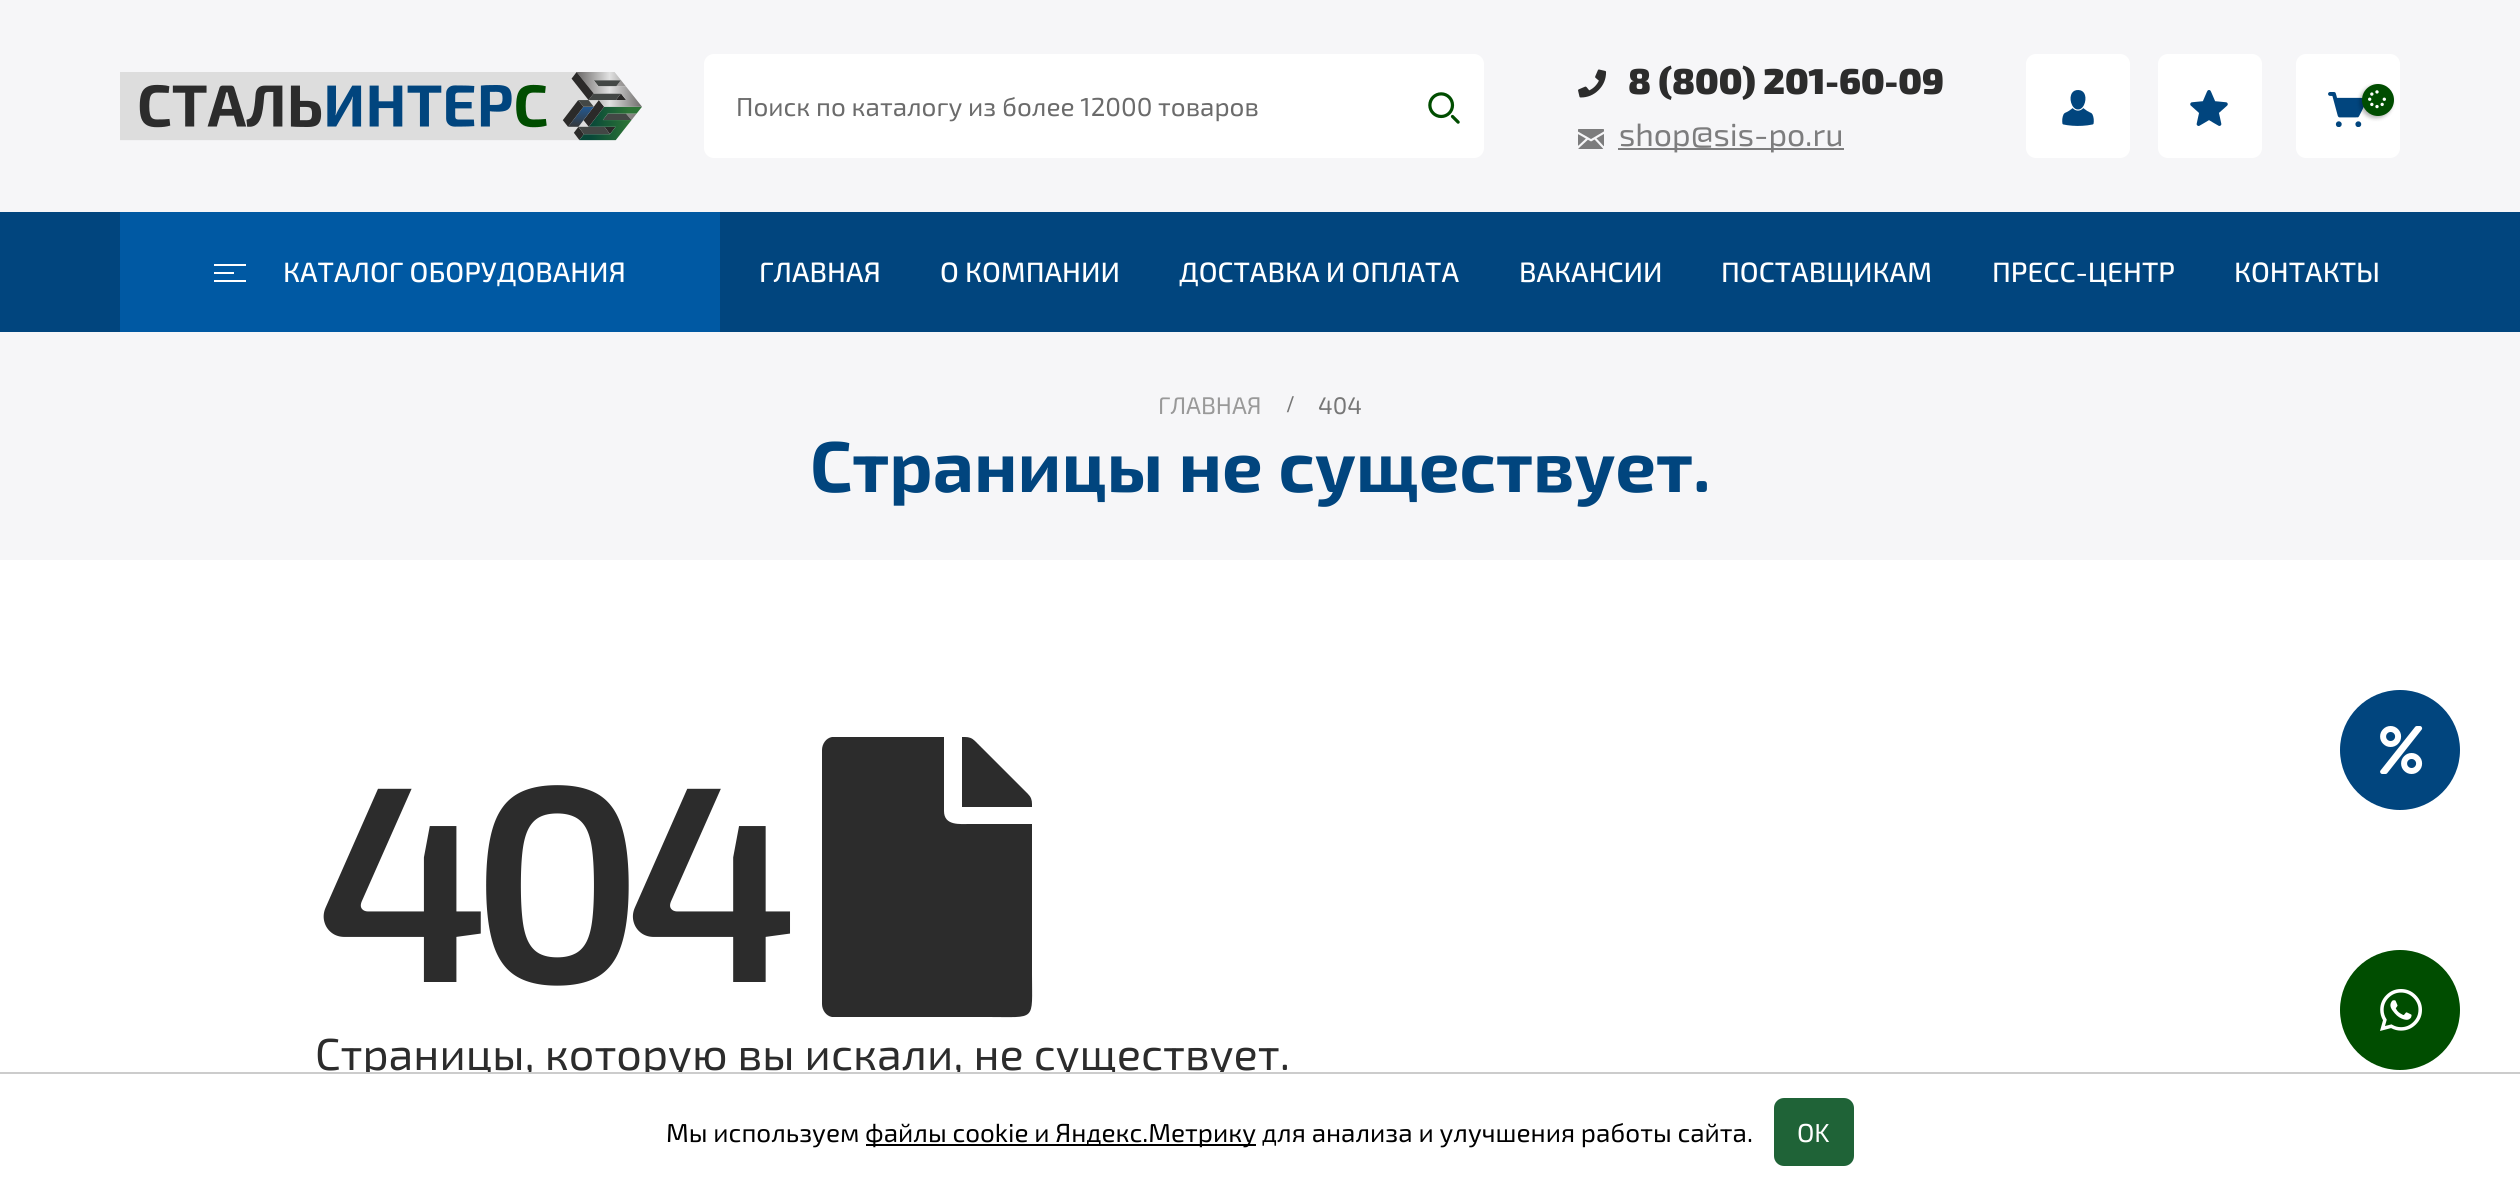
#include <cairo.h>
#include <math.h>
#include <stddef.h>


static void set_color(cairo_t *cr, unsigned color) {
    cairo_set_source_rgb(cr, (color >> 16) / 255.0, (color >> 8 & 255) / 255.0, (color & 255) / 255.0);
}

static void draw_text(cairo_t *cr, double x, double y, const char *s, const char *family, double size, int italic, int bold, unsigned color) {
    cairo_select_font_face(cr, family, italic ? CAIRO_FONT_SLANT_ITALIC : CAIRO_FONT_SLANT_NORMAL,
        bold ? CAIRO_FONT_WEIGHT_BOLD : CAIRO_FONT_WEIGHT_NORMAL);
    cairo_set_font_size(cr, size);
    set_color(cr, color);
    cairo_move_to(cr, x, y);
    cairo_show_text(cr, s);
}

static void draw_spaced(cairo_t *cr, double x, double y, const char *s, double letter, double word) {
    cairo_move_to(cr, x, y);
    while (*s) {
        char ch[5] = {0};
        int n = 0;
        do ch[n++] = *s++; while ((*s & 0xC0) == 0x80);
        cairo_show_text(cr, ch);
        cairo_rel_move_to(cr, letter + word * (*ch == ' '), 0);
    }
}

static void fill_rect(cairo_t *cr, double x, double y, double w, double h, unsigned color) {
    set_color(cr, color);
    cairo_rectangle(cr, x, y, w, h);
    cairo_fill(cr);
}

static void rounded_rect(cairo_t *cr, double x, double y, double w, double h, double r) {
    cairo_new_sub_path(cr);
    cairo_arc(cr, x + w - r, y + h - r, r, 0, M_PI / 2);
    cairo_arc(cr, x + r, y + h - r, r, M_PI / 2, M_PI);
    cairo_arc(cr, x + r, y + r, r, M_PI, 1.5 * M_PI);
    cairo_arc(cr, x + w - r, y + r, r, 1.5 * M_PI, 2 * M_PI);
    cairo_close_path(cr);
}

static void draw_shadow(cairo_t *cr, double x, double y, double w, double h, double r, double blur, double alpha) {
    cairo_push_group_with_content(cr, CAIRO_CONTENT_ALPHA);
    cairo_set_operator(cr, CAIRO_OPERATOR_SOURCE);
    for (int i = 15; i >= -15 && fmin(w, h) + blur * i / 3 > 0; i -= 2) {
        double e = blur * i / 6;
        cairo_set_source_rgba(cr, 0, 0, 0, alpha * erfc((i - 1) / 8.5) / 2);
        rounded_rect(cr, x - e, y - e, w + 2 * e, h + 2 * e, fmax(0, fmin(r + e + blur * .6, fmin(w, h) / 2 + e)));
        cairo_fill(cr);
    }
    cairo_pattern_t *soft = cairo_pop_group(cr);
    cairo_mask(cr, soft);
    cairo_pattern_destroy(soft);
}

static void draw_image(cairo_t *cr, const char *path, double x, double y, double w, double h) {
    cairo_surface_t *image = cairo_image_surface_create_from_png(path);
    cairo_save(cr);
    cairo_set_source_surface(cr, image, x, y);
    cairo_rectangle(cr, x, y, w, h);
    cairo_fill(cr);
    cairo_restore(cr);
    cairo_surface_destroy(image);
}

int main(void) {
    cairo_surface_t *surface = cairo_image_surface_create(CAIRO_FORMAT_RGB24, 2520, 1189);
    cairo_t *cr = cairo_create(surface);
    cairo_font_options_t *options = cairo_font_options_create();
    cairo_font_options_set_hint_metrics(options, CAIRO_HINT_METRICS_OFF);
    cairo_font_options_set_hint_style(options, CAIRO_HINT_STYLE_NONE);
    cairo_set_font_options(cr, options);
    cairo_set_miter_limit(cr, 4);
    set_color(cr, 0xFFFFFF);
    cairo_paint(cr);
    fill_rect(cr, 0, 0, 2520, 212, 0xF6F6F8);
    draw_image(cr, "assets/img1.png", 120, 72, 522, 69);
    set_color(cr, 0xFFFFFF);
    rounded_rect(cr, 704, 54, 780, 104, 10);
    cairo_fill(cr);
    draw_text(cr, 736, 116, "Поиск по каталогу из более 12000 товаров", "Exo 2", 26, 0, 0, 0x6B6B6B);
    draw_image(cr, "assets/img2.png", 1428, 92, 32, 32);
    draw_image(cr, "assets/img3.png", 1578, 69, 29, 29);
    draw_text(cr, 1628, 94, "8 (800) 201-60-09", "Exo 2 Black", 36, 0, 0, 0x2C2C2C);
    draw_image(cr, "assets/img4.png", 1578, 129, 26, 20);
    fill_rect(cr, 1618, 148, 226, 2, 0x7D7D7E);
    draw_text(cr, 1619, 146, "shop@sis-po.ru", "Exo 2", 32, 0, 0, 0x7D7D7E);
    set_color(cr, 0xFFFFFF);
    rounded_rect(cr, 2026, 54, 104, 104, 10);
    cairo_fill(cr);
    draw_image(cr, "assets/img5.png", 2062, 90, 32, 36);
    rounded_rect(cr, 2158, 54, 104, 104, 10);
    cairo_fill(cr);
    draw_image(cr, "assets/img6.png", 2190, 90, 38, 36);
    rounded_rect(cr, 2296, 54, 104, 104, 10);
    cairo_fill(cr);
    draw_image(cr, "assets/img7.png", 2328, 92, 36, 35);
    set_color(cr, 0x000000);
    draw_shadow(cr, 2360, 86, 32, 32, 16, 2, 0.3);
    set_color(cr, 0x004D00);
    cairo_arc(cr, 2378, 100, 16, 0, 2 * M_PI);
    cairo_fill(cr);
    draw_image(cr, "assets/img8.png", 2368, 90, 18, 19);
    fill_rect(cr, 0, 212, 2520, 120, 0x01457E);
    fill_rect(cr, 120, 212, 600, 120, 0x0059A3);
    fill_rect(cr, 214, 264, 32, 2, 0xFFFFFF);
    draw_text(cr, 283, 282, "КАТАЛОГ ОБОРУДОВАНИЯ", "Exo 2 Medium", 28, 0, 0, 0xFFFFFF);
    fill_rect(cr, 214, 272, 20, 2, 0xFFFFFF);
    fill_rect(cr, 214, 280, 32, 2, 0xFFFFFF);
    draw_text(cr, 759, 282, "ГЛАВНАЯ", "Exo 2 Medium", 28, 0, 0, 0xFFFFFF);
    draw_text(cr, 940, 282, "О КОМПАНИИ", "Exo 2 Medium", 28, 0, 0, 0xFFFFFF);
    draw_text(cr, 1179, 282, "ДОСТАВКА И ОПЛАТА", "Exo 2 Medium", 28, 0, 0, 0xFFFFFF);
    draw_text(cr, 1519, 282, "ВАКАНСИИ", "Exo 2 Medium", 28, 0, 0, 0xFFFFFF);
    draw_text(cr, 1721, 282, "ПОСТАВЩИКАМ", "Exo 2 Medium", 28, 0, 0, 0xFFFFFF);
    draw_text(cr, 1992, 282, "ПРЕСС-ЦЕНТР", "Exo 2 Medium", 28, 0, 0, 0xFFFFFF);
    draw_text(cr, 2234, 282, "КОНТАКТЫ", "Exo 2 Medium", 28, 0, 0, 0xFFFFFF);
    fill_rect(cr, 0, 332, 2520, 228, 0xF6F6F8);
    draw_text(cr, 1158, 414, "ГЛАВНАЯ", "Exo 2", 24, 0, 0, 0x999999);
    draw_text(cr, 1287, 412, "/", "Liberation Serif", 24, 0, 1, 0x777777);
    draw_text(cr, 1318, 414, "404", "Exo 2", 24, 0, 0, 0x777777);
    draw_text(cr, 810, 492, "Страницы не существует.", "Exo 2", 72, 0, 1, 0x01457E);
    cairo_select_font_face(cr, "Exo 2 SemiBold", CAIRO_FONT_SLANT_NORMAL, CAIRO_FONT_WEIGHT_NORMAL);
    cairo_set_font_size(cr, 280);
    set_color(cr, 0x2C2C2C);
    draw_spaced(cr, 315, 982, "404", -20, 0);
    cairo_new_path(cr);
    cairo_move_to(cr, 944, 811);
    cairo_curve_to(cr, 944, 826, 960, 824, 970, 824);
    cairo_line_to(cr, 1032, 824);
    cairo_line_to(cr, 1032, 974);
    cairo_curve_to(cr, 1032, 1022, 1037, 1017, 988, 1017);
    cairo_line_to(cr, 832, 1017);
    cairo_curve_to(cr, 826, 1016, 822, 1010, 822, 1004);
    cairo_line_to(cr, 822, 750);
    cairo_curve_to(cr, 822, 744, 826, 738, 832, 737);
    cairo_line_to(cr, 944, 737);
    cairo_close_path(cr);
    cairo_move_to(cr, 1032, 804);
    cairo_line_to(cr, 1032, 807);
    cairo_line_to(cr, 962, 807);
    cairo_line_to(cr, 962, 737);
    cairo_line_to(cr, 965, 737);
    cairo_curve_to(cr, 969, 737, 972, 738, 975, 741);
    cairo_line_to(cr, 1028, 794);
    cairo_curve_to(cr, 1031, 797, 1032, 800, 1032, 804);
    cairo_close_path(cr);
    cairo_fill(cr);
    draw_text(cr, 315, 1070, "Страницы, которую вы искали, не существует.", "Exo 2", 44.8, 0, 0, 0x2C2C2C);
    set_color(cr, 0x01457E);
    cairo_new_path(cr);
    cairo_arc(cr, 2400, 750, 60, 0, 2 * M_PI);
    cairo_fill(cr);
    draw_image(cr, "assets/img9.png", 2380, 726, 43, 48);
    set_color(cr, 0x004D00);
    cairo_arc(cr, 2400, 1010, 60, 0, 2 * M_PI);
    cairo_fill(cr);
    draw_image(cr, "assets/img10.png", 2380, 989, 42, 42);
    fill_rect(cr, 366, 1074, 857, 6, 0xFFFFFF);
    fill_rect(cr, 0, 1072, 2520, 2, 0xCCCCCC);
    draw_text(cr, 666, 1142, "Мы используем", "Exo 2", 26, 0, 0, 0x000000);
    fill_rect(cr, 866, 1144, 390, 2, 0x000000);
    draw_text(cr, 865, 1142, "файлы cookie и Яндекс.Метрику для анализа и улучшения работы сайта.", "Exo 2", 26, 0, 0, 0x000000);
    set_color(cr, 0x1F6337);
    rounded_rect(cr, 1774, 1098, 80, 68, 10);
    cairo_fill(cr);
    draw_text(cr, 1797, 1142, "OK", "Exo 2", 26, 0, 0, 0xFFFFFF);
    cairo_surface_write_to_png(surface, "output.png");
    cairo_font_options_destroy(options);
    cairo_destroy(cr);
    cairo_surface_destroy(surface);
    return 0;
}
